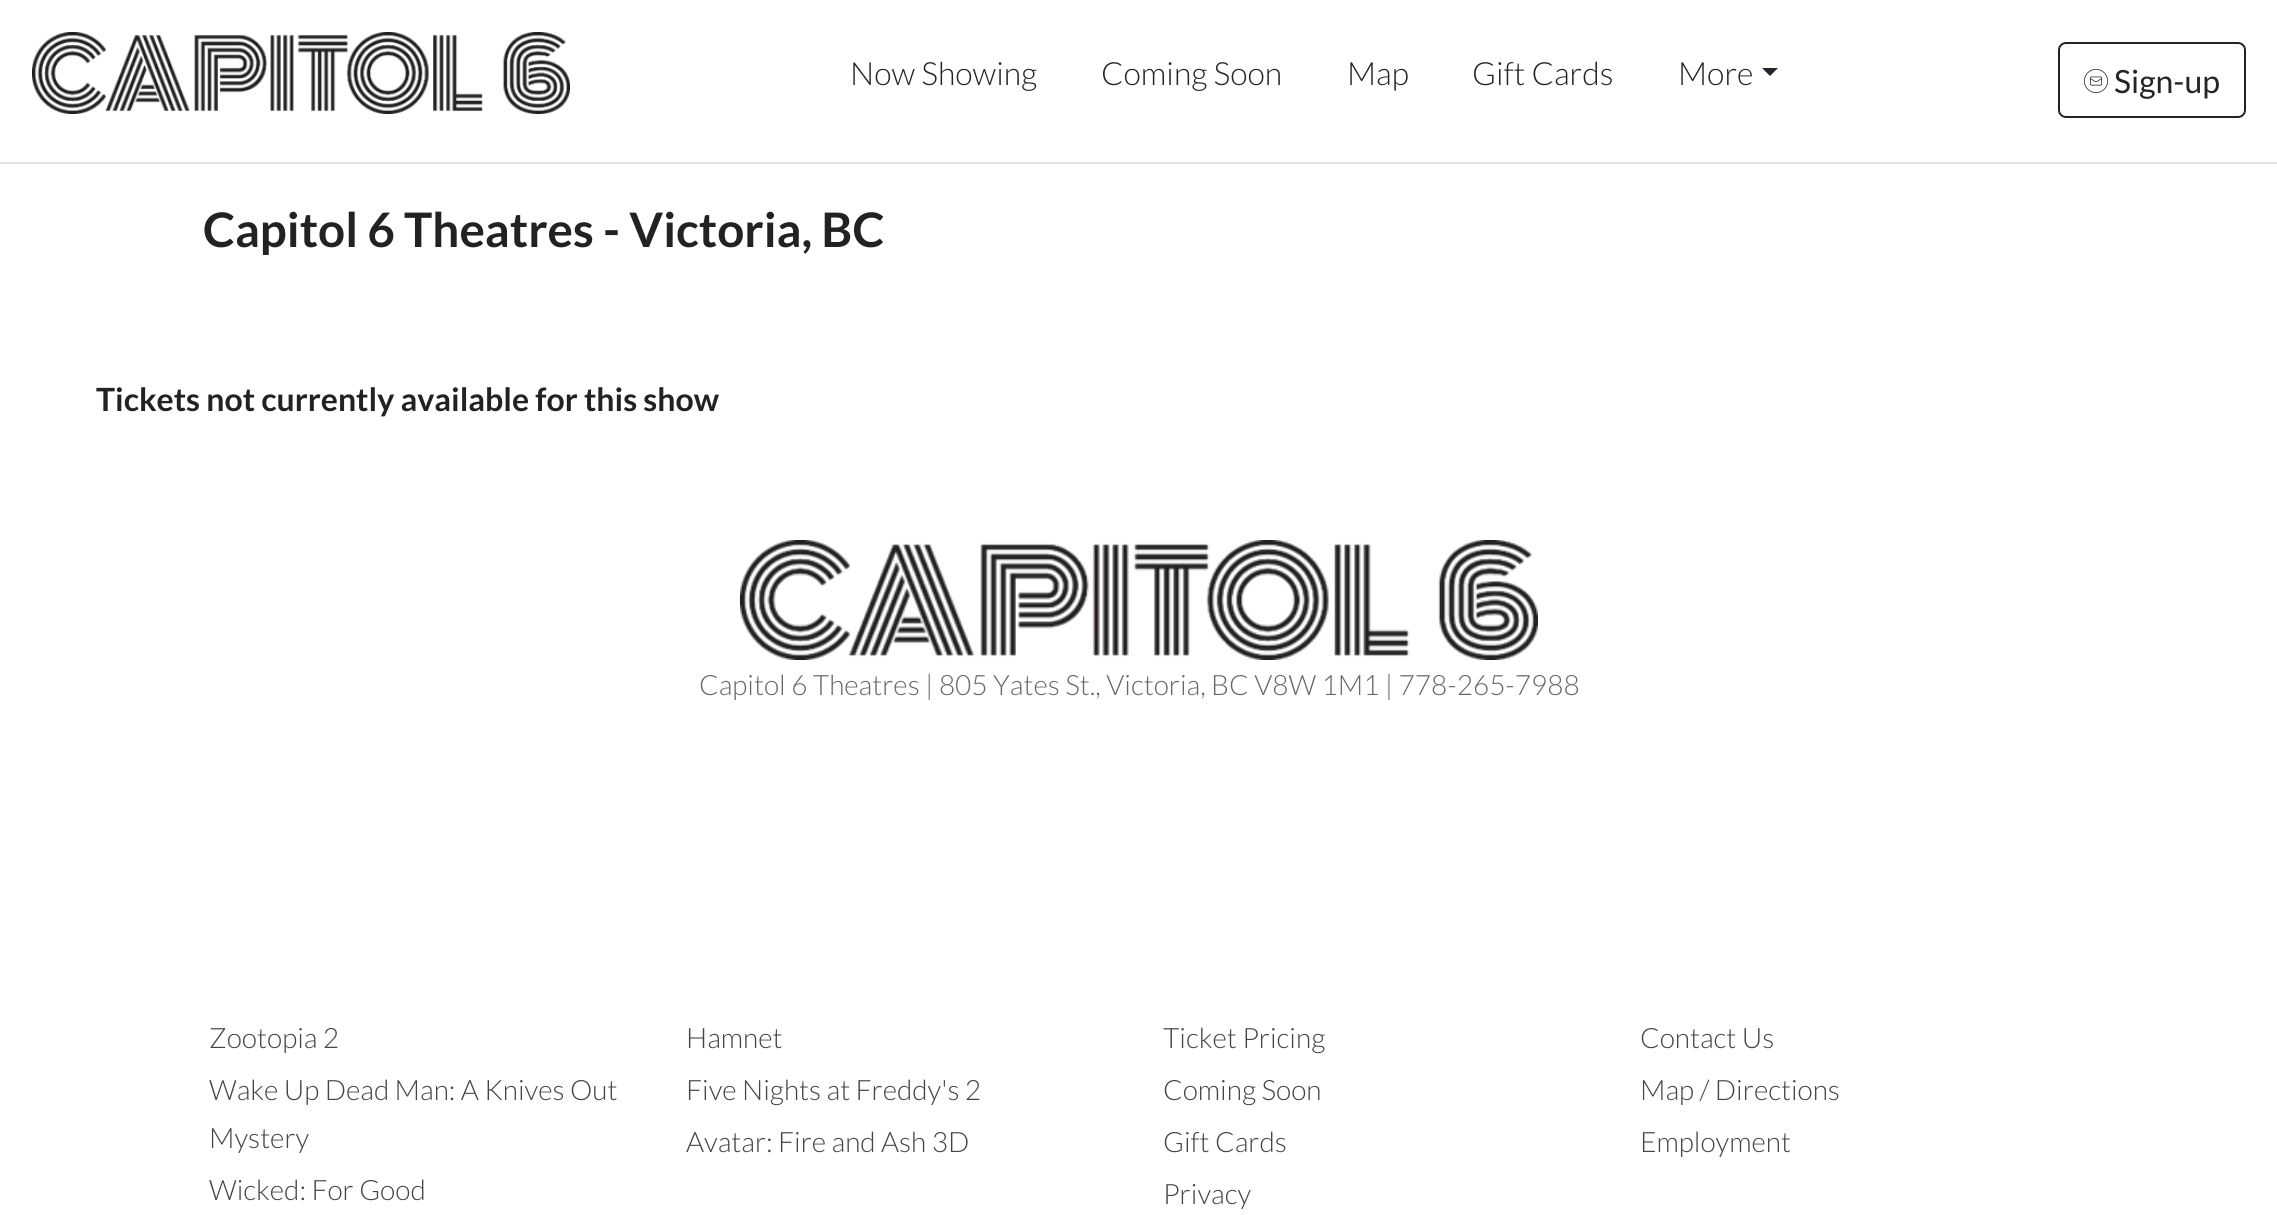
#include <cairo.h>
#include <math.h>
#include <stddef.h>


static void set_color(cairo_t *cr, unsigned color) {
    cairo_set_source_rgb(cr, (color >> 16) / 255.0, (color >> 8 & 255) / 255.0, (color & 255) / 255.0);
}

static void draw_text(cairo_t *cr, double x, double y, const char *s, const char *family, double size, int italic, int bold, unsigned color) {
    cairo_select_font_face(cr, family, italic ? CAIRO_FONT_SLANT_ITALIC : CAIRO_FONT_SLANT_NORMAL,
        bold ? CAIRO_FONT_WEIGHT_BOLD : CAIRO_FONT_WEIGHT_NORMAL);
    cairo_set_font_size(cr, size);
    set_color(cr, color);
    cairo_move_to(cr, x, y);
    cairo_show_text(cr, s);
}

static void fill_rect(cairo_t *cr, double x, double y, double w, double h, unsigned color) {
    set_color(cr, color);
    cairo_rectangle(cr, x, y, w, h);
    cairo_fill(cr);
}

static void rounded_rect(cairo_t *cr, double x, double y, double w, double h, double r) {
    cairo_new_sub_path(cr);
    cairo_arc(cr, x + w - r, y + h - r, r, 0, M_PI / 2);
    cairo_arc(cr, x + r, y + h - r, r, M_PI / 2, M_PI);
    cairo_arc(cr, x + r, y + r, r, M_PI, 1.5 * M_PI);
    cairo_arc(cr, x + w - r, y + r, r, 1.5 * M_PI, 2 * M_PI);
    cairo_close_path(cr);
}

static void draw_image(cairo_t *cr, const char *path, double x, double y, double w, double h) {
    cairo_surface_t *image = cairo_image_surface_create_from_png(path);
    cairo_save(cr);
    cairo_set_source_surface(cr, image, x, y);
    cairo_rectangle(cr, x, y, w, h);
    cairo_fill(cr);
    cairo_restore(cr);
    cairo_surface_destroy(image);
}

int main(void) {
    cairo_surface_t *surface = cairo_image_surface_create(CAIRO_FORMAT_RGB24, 2277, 1215);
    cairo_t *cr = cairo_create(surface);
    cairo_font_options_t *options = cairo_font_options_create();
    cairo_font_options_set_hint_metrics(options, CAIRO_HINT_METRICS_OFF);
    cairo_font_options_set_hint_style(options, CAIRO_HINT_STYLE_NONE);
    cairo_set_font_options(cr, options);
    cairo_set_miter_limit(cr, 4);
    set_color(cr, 0xFFFFFF);
    cairo_paint(cr);
    fill_rect(cr, 0, 162, 2277, 2, 0xDEE2E6);
    draw_image(cr, "assets/img1.png", 32, 32, 538, 82);
    draw_text(cr, 850, 85, "Now Showing", "Lato Light", 32, 0, 0, 0x212529);
    draw_text(cr, 1101, 85, "Coming Soon", "Lato Light", 32, 0, 0, 0x212529);
    draw_text(cr, 1347, 85, "Map", "Lato Light", 32, 0, 0, 0x212529);
    draw_text(cr, 1472, 85, "Gift Cards", "Lato Light", 32, 0, 0, 0x212529);
    draw_text(cr, 1678, 85, "More", "Lato Light", 32, 0, 0, 0x212529);
    cairo_new_path(cr);
    cairo_move_to(cr, 1762, 68);
    cairo_line_to(cr, 1778, 68);
    cairo_line_to(cr, 1770, 76);
    cairo_close_path(cr);
    cairo_fill(cr);
    rounded_rect(cr, 2059, 43, 186, 74, 7);
    cairo_stroke(cr);
    draw_image(cr, "assets/img2.png", 2084, 69, 24, 24);
    draw_text(cr, 2114, 93, "Sign-up", "Lato", 32, 0, 0, 0x212529);
    draw_text(cr, 203, 247, "Capitol 6 Theatres - Victoria, BC", "Lato", 47.6, 0, 1, 0x222222);
    draw_text(cr, 96, 411, "Tickets not currently available for this show", "Lato", 32, 0, 1, 0x222222);
    draw_image(cr, "assets/img3.png", 740, 540, 798, 120);
    draw_text(cr, 699, 695, "Capitol 6 Theatres | 805 Yates St., Victoria, BC V8W 1M1 | 778-265-7988", "Lato Light", 28, 0, 0, 0x666666);
    draw_text(cr, 209, 1048, "Zootopia 2", "Lato Light", 28, 0, 0, 0x444444);
    draw_text(cr, 209, 1100, "Wake Up Dead Man: A Knives Out", "Lato Light", 28, 0, 0, 0x444444);
    draw_text(cr, 209, 1148, "Mystery", "Lato Light", 28, 0, 0, 0x444444);
    draw_text(cr, 209, 1200, "Wicked: For Good", "Lato Light", 28, 0, 0, 0x444444);
    draw_text(cr, 686, 1048, "Hamnet", "Lato Light", 28, 0, 0, 0x444444);
    draw_text(cr, 686, 1100, "Five Nights at Freddy's 2", "Lato Light", 28, 0, 0, 0x444444);
    draw_text(cr, 686, 1152, "Avatar: Fire and Ash 3D", "Lato Light", 28, 0, 0, 0x444444);
    draw_text(cr, 1163, 1048, "Ticket Pricing", "Lato Light", 28, 0, 0, 0x444444);
    draw_text(cr, 1163, 1100, "Coming Soon", "Lato Light", 28, 0, 0, 0x444444);
    draw_text(cr, 1163, 1152, "Gift Cards", "Lato Light", 28, 0, 0, 0x444444);
    draw_text(cr, 1163, 1204, "Privacy", "Lato Light", 28, 0, 0, 0x444444);
    draw_text(cr, 1640, 1048, "Contact Us", "Lato Light", 28, 0, 0, 0x444444);
    draw_text(cr, 1640, 1100, "Map / Directions", "Lato Light", 28, 0, 0, 0x444444);
    draw_text(cr, 1640, 1152, "Employment", "Lato Light", 28, 0, 0, 0x444444);
    cairo_surface_write_to_png(surface, "output.png");
    cairo_font_options_destroy(options);
    cairo_destroy(cr);
    cairo_surface_destroy(surface);
    return 0;
}
